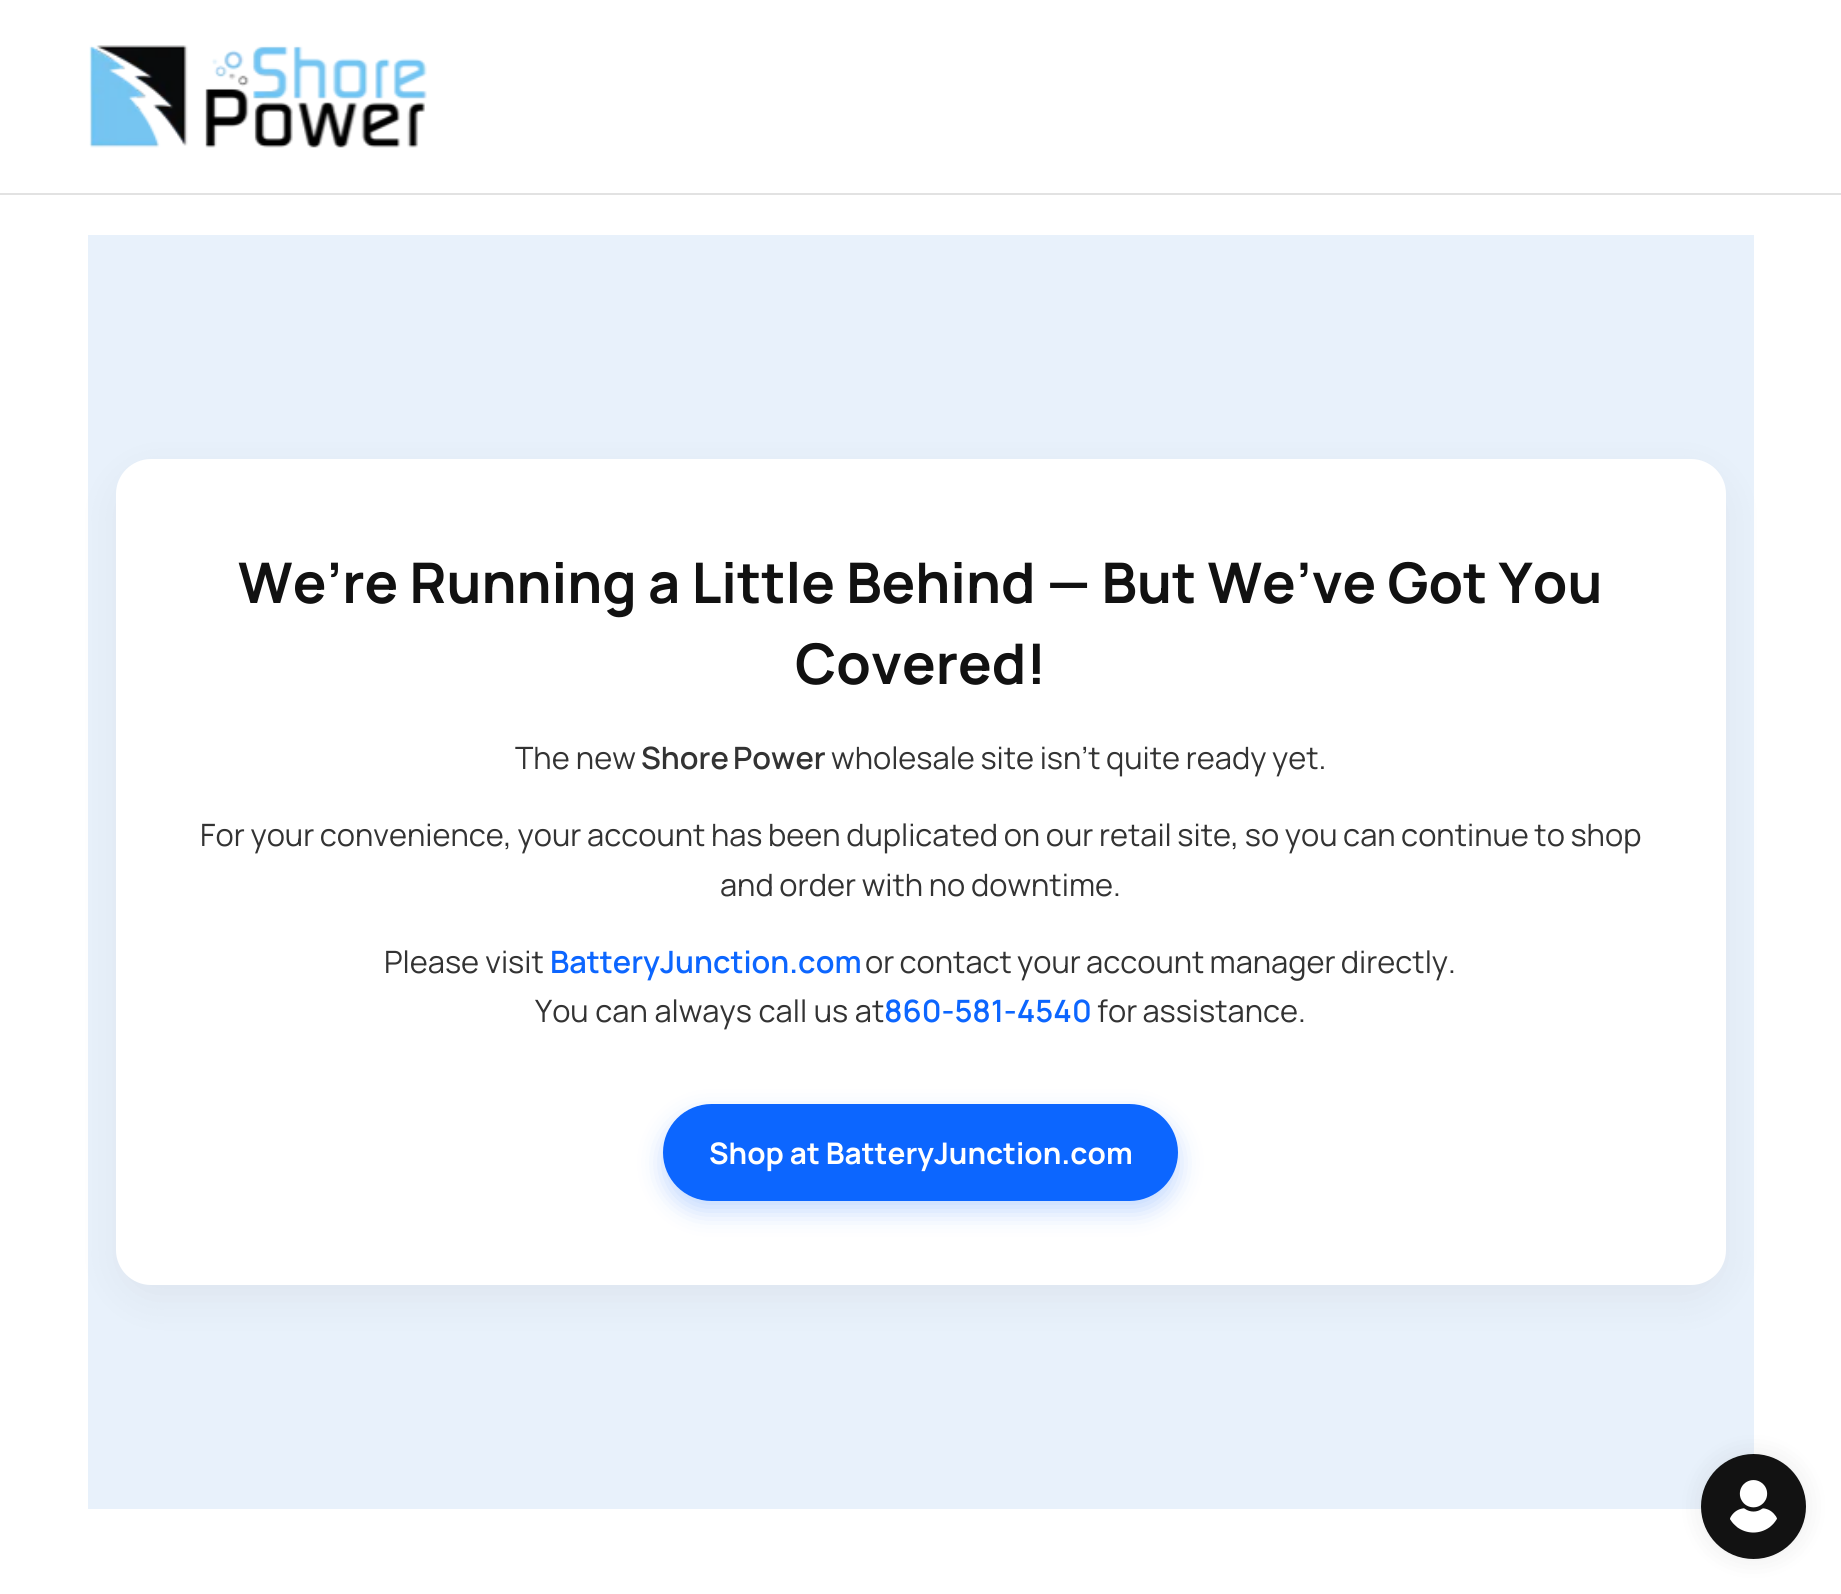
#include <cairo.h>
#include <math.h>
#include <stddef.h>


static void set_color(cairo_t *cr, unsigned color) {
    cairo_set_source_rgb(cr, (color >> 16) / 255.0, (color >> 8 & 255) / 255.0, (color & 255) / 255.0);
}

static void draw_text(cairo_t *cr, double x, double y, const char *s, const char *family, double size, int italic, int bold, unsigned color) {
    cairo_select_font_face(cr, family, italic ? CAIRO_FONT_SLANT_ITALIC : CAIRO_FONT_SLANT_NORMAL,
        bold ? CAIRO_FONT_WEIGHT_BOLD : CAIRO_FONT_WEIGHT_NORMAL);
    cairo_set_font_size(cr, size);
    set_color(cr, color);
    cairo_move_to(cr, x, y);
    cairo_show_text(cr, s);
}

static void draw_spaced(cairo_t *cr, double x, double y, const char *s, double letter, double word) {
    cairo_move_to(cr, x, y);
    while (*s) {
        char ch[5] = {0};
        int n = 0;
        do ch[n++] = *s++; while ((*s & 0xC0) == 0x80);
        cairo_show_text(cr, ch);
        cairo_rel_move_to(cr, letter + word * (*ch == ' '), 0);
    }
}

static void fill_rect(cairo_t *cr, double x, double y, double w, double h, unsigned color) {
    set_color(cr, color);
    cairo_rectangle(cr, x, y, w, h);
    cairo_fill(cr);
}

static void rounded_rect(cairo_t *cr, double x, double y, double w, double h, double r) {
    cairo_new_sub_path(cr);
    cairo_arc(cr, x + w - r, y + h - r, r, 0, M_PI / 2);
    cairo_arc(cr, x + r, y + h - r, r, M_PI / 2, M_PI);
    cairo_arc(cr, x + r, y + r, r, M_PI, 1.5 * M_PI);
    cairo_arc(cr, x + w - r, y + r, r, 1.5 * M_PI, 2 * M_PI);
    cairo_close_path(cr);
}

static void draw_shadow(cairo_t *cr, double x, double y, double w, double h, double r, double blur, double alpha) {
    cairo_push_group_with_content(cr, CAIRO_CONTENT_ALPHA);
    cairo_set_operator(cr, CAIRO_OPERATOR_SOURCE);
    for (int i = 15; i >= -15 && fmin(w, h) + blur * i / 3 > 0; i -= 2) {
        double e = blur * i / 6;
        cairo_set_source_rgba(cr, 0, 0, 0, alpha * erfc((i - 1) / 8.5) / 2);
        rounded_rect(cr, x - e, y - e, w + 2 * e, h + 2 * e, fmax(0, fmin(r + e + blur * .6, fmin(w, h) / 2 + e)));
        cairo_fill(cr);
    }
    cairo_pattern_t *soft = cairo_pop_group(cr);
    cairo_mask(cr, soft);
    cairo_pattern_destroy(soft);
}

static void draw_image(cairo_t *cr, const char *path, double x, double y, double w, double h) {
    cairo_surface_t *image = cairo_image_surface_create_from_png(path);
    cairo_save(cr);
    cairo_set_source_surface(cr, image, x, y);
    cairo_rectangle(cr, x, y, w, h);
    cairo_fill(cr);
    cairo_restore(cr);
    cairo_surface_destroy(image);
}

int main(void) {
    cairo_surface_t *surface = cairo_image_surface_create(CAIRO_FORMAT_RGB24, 1841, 1594);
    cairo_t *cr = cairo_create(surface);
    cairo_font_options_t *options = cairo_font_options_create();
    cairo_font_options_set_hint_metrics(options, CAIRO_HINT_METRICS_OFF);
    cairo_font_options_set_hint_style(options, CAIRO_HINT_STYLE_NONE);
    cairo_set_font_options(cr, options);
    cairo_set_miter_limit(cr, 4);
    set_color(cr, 0xFFFFFF);
    cairo_paint(cr);
    fill_rect(cr, 0, 193, 1841, 2, 0xE2E2E2);
    draw_image(cr, "assets/img1.png", 89, 45, 338, 103);
    fill_rect(cr, 88, 235, 1666, 1274, 0xE8F1FB);
    set_color(cr, 0x000000);
    draw_shadow(cr, 116, 473, 1610, 826, 35, 21, 0.05);
    set_color(cr, 0xFFFFFF);
    rounded_rect(cr, 116, 459, 1610, 826, 35);
    cairo_fill(cr);
    draw_text(cr, 238, 603, "We’re Running a Little Behind — But We’ve Got You", "Manrope ExtraLight", 56, 0, 0, 0x111111);
    draw_text(cr, 795, 684, "Covered!", "Manrope ExtraLight", 56, 0, 0, 0x111111);
    draw_text(cr, 515, 769, "The new", "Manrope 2 ExtraLight", 30.8, 0, 0, 0x333333);
    cairo_select_font_face(cr, "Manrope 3 ExtraLight", CAIRO_FONT_SLANT_NORMAL, CAIRO_FONT_WEIGHT_NORMAL);
    draw_spaced(cr, 641, 769, "Shore Power", 0, -2);
    cairo_select_font_face(cr, "Manrope 2 ExtraLight", CAIRO_FONT_SLANT_NORMAL, CAIRO_FONT_WEIGHT_NORMAL);
    draw_spaced(cr, 831, 769, "wholesale site isn’t quite ready yet.", 0, -0.6);
    draw_spaced(cr, 200, 846, "For your convenience, your account has been duplicated on our retail site, so you can continue to shop", 0, -0.6);
    draw_spaced(cr, 720, 896, "and order with no downtime.", 0, -0.5);
    draw_text(cr, 384, 973, "Please visit", "Manrope 2 ExtraLight", 30.8, 0, 0, 0x333333);
    draw_text(cr, 550, 973, "BatteryJunction.com", "Manrope 3 ExtraLight", 30.8, 0, 0, 0x0C66FF);
    cairo_select_font_face(cr, "Manrope 2 ExtraLight", CAIRO_FONT_SLANT_NORMAL, CAIRO_FONT_WEIGHT_NORMAL);
    set_color(cr, 0x333333);
    draw_spaced(cr, 865, 973, "or contact your account manager directly.", 0, -1);
    draw_spaced(cr, 535, 1022, "You can always call us at", 0, 0.5);
    draw_text(cr, 884, 1022, "860-581-4540", "Manrope 3 ExtraLight", 30.8, 0, 0, 0x0C66FF);
    cairo_select_font_face(cr, "Manrope 2 ExtraLight", CAIRO_FONT_SLANT_NORMAL, CAIRO_FONT_WEIGHT_NORMAL);
    set_color(cr, 0x333333);
    draw_spaced(cr, 1097, 1022, "for assistance.", 0, -1);
    set_color(cr, 0x0C66FF);
    draw_shadow(cr, 663, 1115, 515, 96, 48, 12, 0.25);
    set_color(cr, 0x0C66FF);
    rounded_rect(cr, 663, 1104, 515, 97, 48.5);
    cairo_fill(cr);
    draw_text(cr, 709, 1164, "Shop at BatteryJunction.com", "Manrope ExtraLight", 29.75, 0, 0, 0xFFFFFF);
    set_color(cr, 0x000000);
    draw_shadow(cr, 1701, 1454, 105, 105, 52.5, 13, 0.08);
    set_color(cr, 0x121212);
    cairo_arc(cr, 1753.5, 1506.5, 52.5, 0, 2 * M_PI);
    cairo_fill(cr);
    draw_image(cr, "assets/img2.png", 1730, 1480, 47, 53);
    cairo_surface_write_to_png(surface, "output.png");
    cairo_font_options_destroy(options);
    cairo_destroy(cr);
    cairo_surface_destroy(surface);
    return 0;
}
